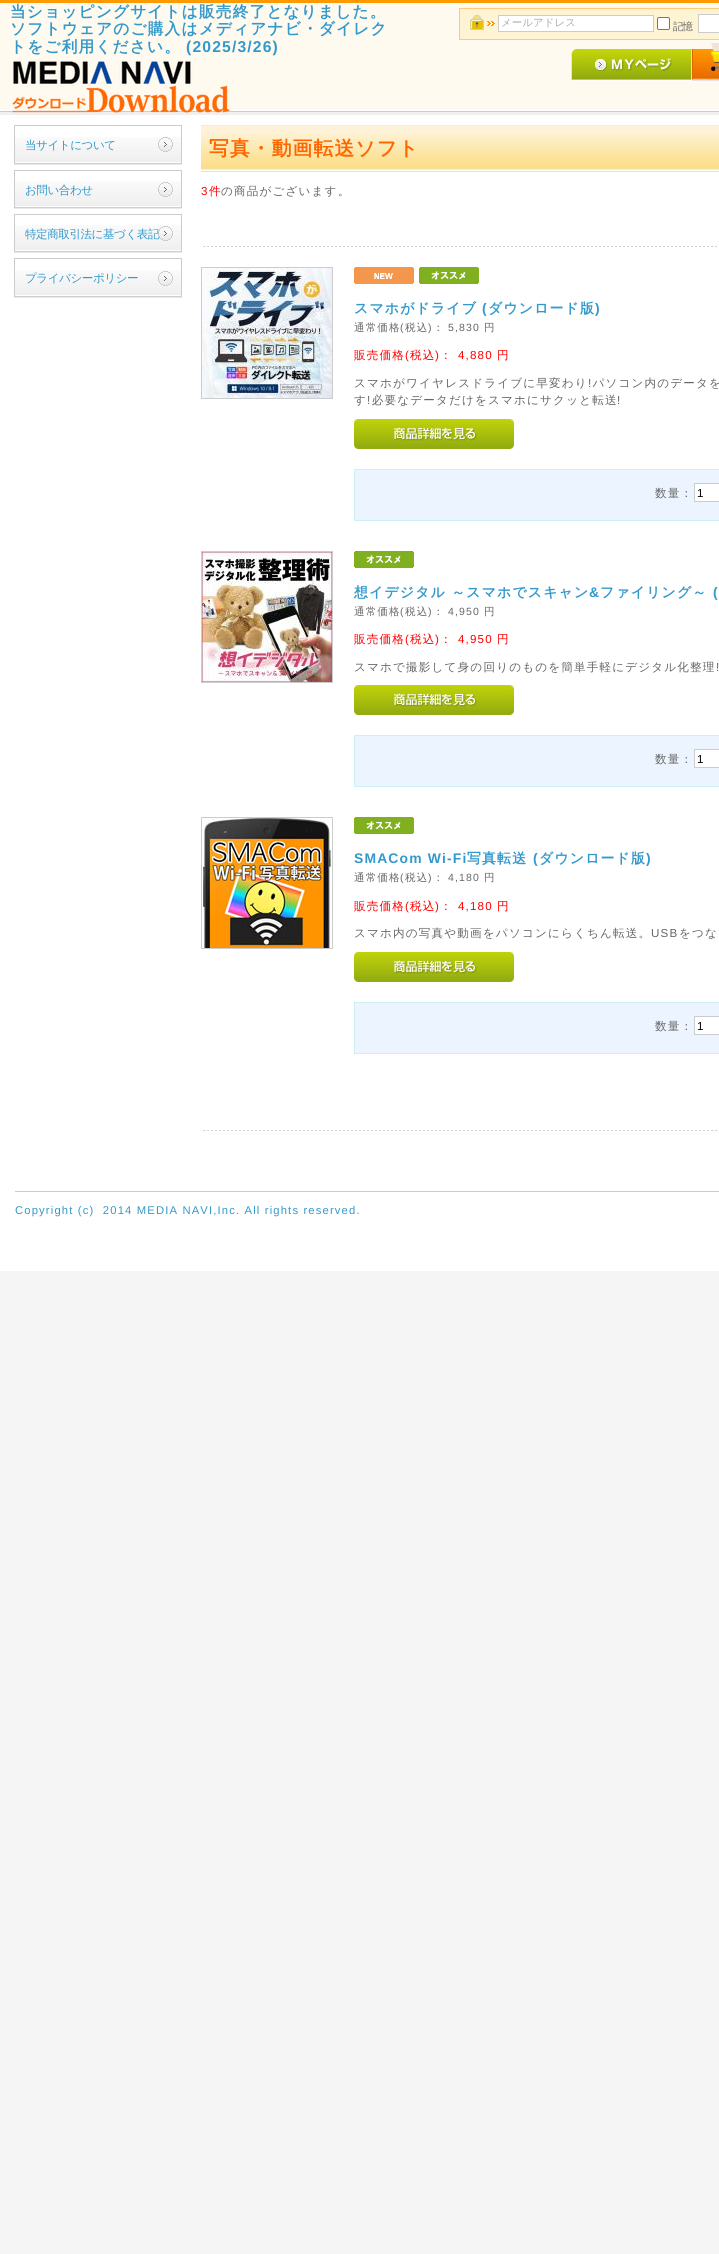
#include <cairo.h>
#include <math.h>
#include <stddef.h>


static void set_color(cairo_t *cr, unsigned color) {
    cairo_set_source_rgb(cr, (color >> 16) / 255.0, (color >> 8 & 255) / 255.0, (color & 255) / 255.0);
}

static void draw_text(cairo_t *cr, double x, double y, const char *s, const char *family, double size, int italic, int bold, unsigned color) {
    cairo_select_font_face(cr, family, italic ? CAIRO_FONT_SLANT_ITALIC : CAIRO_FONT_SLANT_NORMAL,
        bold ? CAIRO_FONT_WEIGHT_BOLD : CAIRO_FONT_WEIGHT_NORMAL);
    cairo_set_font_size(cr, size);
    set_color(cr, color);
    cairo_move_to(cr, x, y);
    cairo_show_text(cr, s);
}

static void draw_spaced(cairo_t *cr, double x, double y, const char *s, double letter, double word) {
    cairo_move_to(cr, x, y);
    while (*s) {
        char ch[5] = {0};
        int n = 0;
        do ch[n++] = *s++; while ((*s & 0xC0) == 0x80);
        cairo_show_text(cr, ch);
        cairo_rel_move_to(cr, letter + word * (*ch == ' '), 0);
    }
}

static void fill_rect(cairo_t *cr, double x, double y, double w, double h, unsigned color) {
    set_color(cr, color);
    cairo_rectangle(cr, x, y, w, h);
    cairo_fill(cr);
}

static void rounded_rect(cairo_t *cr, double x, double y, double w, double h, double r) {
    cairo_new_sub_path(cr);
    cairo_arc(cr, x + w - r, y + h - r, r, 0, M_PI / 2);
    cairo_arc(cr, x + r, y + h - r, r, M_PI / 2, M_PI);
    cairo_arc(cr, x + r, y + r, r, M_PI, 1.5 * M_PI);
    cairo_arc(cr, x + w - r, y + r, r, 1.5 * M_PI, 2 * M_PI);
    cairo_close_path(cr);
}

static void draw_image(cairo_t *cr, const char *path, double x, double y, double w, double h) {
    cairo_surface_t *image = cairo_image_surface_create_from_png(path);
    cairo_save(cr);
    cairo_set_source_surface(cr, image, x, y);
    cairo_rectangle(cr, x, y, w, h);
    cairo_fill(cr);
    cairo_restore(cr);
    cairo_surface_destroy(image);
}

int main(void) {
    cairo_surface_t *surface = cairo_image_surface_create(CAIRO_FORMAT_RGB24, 719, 2254);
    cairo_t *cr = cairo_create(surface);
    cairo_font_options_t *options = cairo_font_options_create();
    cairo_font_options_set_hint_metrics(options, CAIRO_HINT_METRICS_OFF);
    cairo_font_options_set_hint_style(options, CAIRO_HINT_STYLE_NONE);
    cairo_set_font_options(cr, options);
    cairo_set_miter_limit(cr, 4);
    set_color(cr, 0xF5F5F5);
    cairo_paint(cr);
    fill_rect(cr, 0, 3, 719, 107, 0xFFFAF0);
    draw_image(cr, "assets/img1.png", 0, 110, 719, 5);
    fill_rect(cr, 0, 0, 719, 3, 0xFF9900);
    cairo_select_font_face(cr, "WenQuanYi Zen Hei", CAIRO_FONT_SLANT_NORMAL, CAIRO_FONT_WEIGHT_BOLD);
    cairo_set_font_size(cr, 15.7);
    set_color(cr, 0x3399CC);
    draw_spaced(cr, 10, 17, "当ショッピングサイトは販売終了となりました。", 1.15, 0);
    draw_spaced(cr, 10, 34, "ソフトウェアのご購入はメディアナビ・ダイレク", 1.15, 0);
    draw_spaced(cr, 10, 52, "トをご利用ください。", 1.15, 0);
    cairo_select_font_face(cr, "Liberation Sans", CAIRO_FONT_SLANT_NORMAL, CAIRO_FONT_WEIGHT_BOLD);
    draw_spaced(cr, 186, 52, "(2025/3/26)", 1.15, 0);
    draw_image(cr, "assets/img2.png", 12, 61, 218, 54);
    set_color(cr, 0xFEF3D3);
    cairo_rectangle(cr, 459.5, 8.5, 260, 31);
    cairo_fill_preserve(cr);
    set_color(cr, 0xFFC979);
    cairo_set_line_width(cr, 1);
    cairo_stroke(cr);
    draw_image(cr, "assets/img3.png", 470, 15, 25, 15);
    set_color(cr, 0xFFFFFF);
    cairo_rectangle(cr, 498.5, 15.5, 155, 16);
    cairo_fill_preserve(cr);
    set_color(cr, 0xCCCCCC);
    cairo_stroke(cr);
    draw_text(cr, 501, 26, "メールアドレス", "WenQuanYi Zen Hei Medium", 10.5, 0, 0, 0xAAAAAA);
    set_color(cr, 0xFFFFFF);
    rounded_rect(cr, 657.5, 17.5, 12, 12, 1.5);
    cairo_fill_preserve(cr);
    set_color(cr, 0x767676);
    cairo_stroke(cr);
    set_color(cr, 0x666666);
    draw_spaced(cr, 673, 30, "記憶", -1, 0);
    set_color(cr, 0xFFFFFF);
    cairo_rectangle(cr, 698.5, 14.5, 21, 18);
    cairo_fill_preserve(cr);
    set_color(cr, 0xCCCCCC);
    cairo_stroke(cr);
    draw_image(cr, "assets/img4.png", 571, 49, 121, 32);
    draw_image(cr, "assets/img5.png", 692, 43, 27, 38);
    fill_rect(cr, 0, 115, 719, 1156, 0xFFFFFF);
    draw_image(cr, "assets/img6.png", 14, 137, 168, 28);
    draw_image(cr, "assets/img7.png", 158, 137, 15, 15);
    fill_rect(cr, 14, 125, 168, 1, 0xCCCCCC);
    fill_rect(cr, 181, 125, 1, 39, 0xCCCCCC);
    fill_rect(cr, 14, 125, 1, 39, 0xCCCCCC);
    cairo_set_font_size(cr, 11.6);
    set_color(cr, 0x3399CC);
    draw_spaced(cr, 25, 149, "当サイトについて", -0.5, 0);
    draw_image(cr, "assets/img6.png", 14, 181, 168, 28);
    draw_image(cr, "assets/img8.png", 158, 182, 15, 15);
    fill_rect(cr, 14, 170, 168, 1, 0xCCCCCC);
    fill_rect(cr, 181, 170, 1, 38, 0xCCCCCC);
    fill_rect(cr, 14, 170, 1, 38, 0xCCCCCC);
    set_color(cr, 0x3399CC);
    draw_spaced(cr, 25, 194, "お問い合わせ", -0.5, 0);
    draw_image(cr, "assets/img6.png", 14, 225, 168, 28);
    draw_image(cr, "assets/img8.png", 158, 226, 15, 15);
    fill_rect(cr, 14, 214, 168, 1, 0xCCCCCC);
    fill_rect(cr, 181, 214, 1, 38, 0xCCCCCC);
    fill_rect(cr, 14, 214, 1, 38, 0xCCCCCC);
    set_color(cr, 0x3399CC);
    draw_spaced(cr, 25, 238, "特定商取引法に基づく表記", -0.5, 0);
    draw_image(cr, "assets/img6.png", 14, 270, 168, 28);
    draw_image(cr, "assets/img8.png", 158, 271, 15, 15);
    fill_rect(cr, 14, 258, 168, 1, 0xCCCCCC);
    fill_rect(cr, 181, 258, 1, 39, 0xCCCCCC);
    fill_rect(cr, 14, 258, 1, 39, 0xCCCCCC);
    set_color(cr, 0x3399CC);
    draw_spaced(cr, 25, 282, "プライバシーポリシー", -0.5, 0);
    fill_rect(cr, 201, 126, 518, 7, 0xFEF3D8);
    draw_image(cr, "assets/img9.png", 201, 133, 518, 39);
    fill_rect(cr, 201, 125, 518, 1, 0xEBECED);
    cairo_select_font_face(cr, "WenQuanYi Zen Hei", CAIRO_FONT_SLANT_NORMAL, CAIRO_FONT_WEIGHT_BOLD);
    cairo_set_font_size(cr, 19.75);
    set_color(cr, 0xFF6600);
    draw_spaced(cr, 209, 155, "写真・動画転送ソフト", 1.15, 0);
    cairo_select_font_face(cr, "Liberation Sans", CAIRO_FONT_SLANT_NORMAL, CAIRO_FONT_WEIGHT_NORMAL);
    cairo_set_font_size(cr, 11.6);
    set_color(cr, 0xFF0000);
    draw_spaced(cr, 201, 195, "3", 1.15, 0);
    cairo_select_font_face(cr, "WenQuanYi Zen Hei Medium", CAIRO_FONT_SLANT_NORMAL, CAIRO_FONT_WEIGHT_NORMAL);
    draw_spaced(cr, 209, 195, "件", 1.15, 0);
    set_color(cr, 0x666666);
    draw_spaced(cr, 221, 195, "の商品がございます。", 1.15, 0);
    draw_image(cr, "assets/img10.png", 201, 246, 517, 1);
    cairo_rectangle(cr, 201.5, 267.5, 131, 131);
    set_color(cr, 0xCCCCCC);
    cairo_stroke(cr);
    draw_image(cr, "assets/img11.png", 202, 268, 130, 130);
    draw_image(cr, "assets/img12.png", 354, 267, 60, 17);
    draw_image(cr, "assets/img13.png", 419, 267, 60, 17);
    cairo_select_font_face(cr, "WenQuanYi Zen Hei", CAIRO_FONT_SLANT_NORMAL, CAIRO_FONT_WEIGHT_BOLD);
    cairo_set_font_size(cr, 13.9);
    set_color(cr, 0x3399CC);
    draw_spaced(cr, 354, 313, "スマホがドライブ", 1.15, 0);
    cairo_select_font_face(cr, "Liberation Sans", CAIRO_FONT_SLANT_NORMAL, CAIRO_FONT_WEIGHT_BOLD);
    draw_spaced(cr, 482, 313, "(", 1.15, 0);
    cairo_select_font_face(cr, "WenQuanYi Zen Hei", CAIRO_FONT_SLANT_NORMAL, CAIRO_FONT_WEIGHT_BOLD);
    draw_spaced(cr, 488, 313, "ダウンロード版", 1.15, 0);
    cairo_select_font_face(cr, "Liberation Sans", CAIRO_FONT_SLANT_NORMAL, CAIRO_FONT_WEIGHT_BOLD);
    draw_spaced(cr, 595, 313, ")", 1.15, 0);
    cairo_select_font_face(cr, "WenQuanYi Zen Hei Medium", CAIRO_FONT_SLANT_NORMAL, CAIRO_FONT_WEIGHT_NORMAL);
    cairo_set_font_size(cr, 10.5);
    set_color(cr, 0x666666);
    draw_spaced(cr, 354, 331, "通常価格", 1.15, 0);
    cairo_select_font_face(cr, "Liberation Sans", CAIRO_FONT_SLANT_NORMAL, CAIRO_FONT_WEIGHT_NORMAL);
    draw_spaced(cr, 400, 331, "(", 1.15, 0);
    cairo_select_font_face(cr, "WenQuanYi Zen Hei Medium", CAIRO_FONT_SLANT_NORMAL, CAIRO_FONT_WEIGHT_NORMAL);
    draw_spaced(cr, 405, 331, "税込", 1.15, 0);
    cairo_select_font_face(cr, "Liberation Sans", CAIRO_FONT_SLANT_NORMAL, CAIRO_FONT_WEIGHT_NORMAL);
    draw_spaced(cr, 428, 331, ")", 1.15, 0);
    cairo_select_font_face(cr, "WenQuanYi Zen Hei Medium", CAIRO_FONT_SLANT_NORMAL, CAIRO_FONT_WEIGHT_NORMAL);
    draw_spaced(cr, 433, 331, "：", 1.15, 0);
    cairo_select_font_face(cr, "Liberation Sans", CAIRO_FONT_SLANT_NORMAL, CAIRO_FONT_WEIGHT_NORMAL);
    draw_spaced(cr, 448, 331, "5,830", 1.15, 0);
    cairo_select_font_face(cr, "WenQuanYi Zen Hei Medium", CAIRO_FONT_SLANT_NORMAL, CAIRO_FONT_WEIGHT_NORMAL);
    draw_spaced(cr, 484, 331, "円", 1.15, 0);
    cairo_set_font_size(cr, 11.6);
    set_color(cr, 0xFF0000);
    draw_spaced(cr, 354, 359, "販売価格", 1.15, 0);
    cairo_select_font_face(cr, "Liberation Sans", CAIRO_FONT_SLANT_NORMAL, CAIRO_FONT_WEIGHT_NORMAL);
    draw_spaced(cr, 405, 359, "(", 1.15, 0);
    cairo_select_font_face(cr, "WenQuanYi Zen Hei Medium", CAIRO_FONT_SLANT_NORMAL, CAIRO_FONT_WEIGHT_NORMAL);
    draw_spaced(cr, 410, 359, "税込", 1.15, 0);
    cairo_select_font_face(cr, "Liberation Sans", CAIRO_FONT_SLANT_NORMAL, CAIRO_FONT_WEIGHT_NORMAL);
    draw_spaced(cr, 435, 359, ")", 1.15, 0);
    cairo_select_font_face(cr, "WenQuanYi Zen Hei Medium", CAIRO_FONT_SLANT_NORMAL, CAIRO_FONT_WEIGHT_NORMAL);
    draw_spaced(cr, 440, 359, "：", 1.15, 0);
    cairo_select_font_face(cr, "Liberation Sans", CAIRO_FONT_SLANT_NORMAL, CAIRO_FONT_WEIGHT_NORMAL);
    draw_spaced(cr, 458, 359, "4,880", 1.15, 0);
    cairo_select_font_face(cr, "WenQuanYi Zen Hei Medium", CAIRO_FONT_SLANT_NORMAL, CAIRO_FONT_WEIGHT_NORMAL);
    draw_spaced(cr, 497, 359, "円", 1.15, 0);
    set_color(cr, 0x666666);
    draw_spaced(cr, 354, 387, "スマホがワイヤレスドライブに早変わり パソコン内のデータを", 1.15, 0);
    cairo_select_font_face(cr, "Liberation Sans", CAIRO_FONT_SLANT_NORMAL, CAIRO_FONT_WEIGHT_NORMAL);
    draw_spaced(cr, 588, 387, "!", 1.15, 0);
    cairo_select_font_face(cr, "WenQuanYi Zen Hei Medium", CAIRO_FONT_SLANT_NORMAL, CAIRO_FONT_WEIGHT_NORMAL);
    draw_spaced(cr, 354, 404, "す 必要なデータだけをスマホにサクッと転送", 1.15, 0);
    cairo_select_font_face(cr, "Liberation Sans", CAIRO_FONT_SLANT_NORMAL, CAIRO_FONT_WEIGHT_NORMAL);
    draw_spaced(cr, 367, 404, "!", 1.15, 0);
    draw_spaced(cr, 617, 404, "!", 1.15, 0);
    draw_image(cr, "assets/img14.png", 354, 419, 160, 30);
    set_color(cr, 0xECF5FF);
    cairo_rectangle(cr, 354.5, 469.5, 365, 51);
    cairo_fill_preserve(cr);
    set_color(cr, 0xCEF0F4);
    cairo_stroke(cr);
    cairo_select_font_face(cr, "WenQuanYi Zen Hei Medium", CAIRO_FONT_SLANT_NORMAL, CAIRO_FONT_WEIGHT_NORMAL);
    set_color(cr, 0x666666);
    draw_spaced(cr, 655, 497, "数量：", 1.15, 0);
    set_color(cr, 0xFFFFFF);
    cairo_rectangle(cr, 694.5, 483.5, 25, 18);
    cairo_fill_preserve(cr);
    set_color(cr, 0xCCCCCC);
    cairo_stroke(cr);
    draw_text(cr, 697, 497, "1", "Liberation Sans", 11.6, 0, 0, 0x000000);
    cairo_rectangle(cr, 201.5, 551.5, 131, 131);
    set_color(cr, 0xCCCCCC);
    cairo_stroke(cr);
    draw_image(cr, "assets/img15.png", 202, 552, 130, 130);
    draw_image(cr, "assets/img13.png", 354, 551, 60, 17);
    cairo_select_font_face(cr, "WenQuanYi Zen Hei", CAIRO_FONT_SLANT_NORMAL, CAIRO_FONT_WEIGHT_BOLD);
    cairo_set_font_size(cr, 13.9);
    set_color(cr, 0x3399CC);
    draw_spaced(cr, 354, 597, "想イデジタル ～スマホでスキャン", 1.15, 0);
    cairo_select_font_face(cr, "Liberation Sans", CAIRO_FONT_SLANT_NORMAL, CAIRO_FONT_WEIGHT_BOLD);
    draw_spaced(cr, 589, 597, "&", 1.15, 0);
    cairo_select_font_face(cr, "WenQuanYi Zen Hei", CAIRO_FONT_SLANT_NORMAL, CAIRO_FONT_WEIGHT_BOLD);
    draw_spaced(cr, 600, 597, "ファイリング～", 1.15, 0);
    cairo_select_font_face(cr, "Liberation Sans", CAIRO_FONT_SLANT_NORMAL, CAIRO_FONT_WEIGHT_BOLD);
    draw_spaced(cr, 713, 597, "(", 1.15, 0);
    cairo_select_font_face(cr, "WenQuanYi Zen Hei Medium", CAIRO_FONT_SLANT_NORMAL, CAIRO_FONT_WEIGHT_NORMAL);
    cairo_set_font_size(cr, 10.5);
    set_color(cr, 0x666666);
    draw_spaced(cr, 354, 615, "通常価格", 1.15, 0);
    cairo_select_font_face(cr, "Liberation Sans", CAIRO_FONT_SLANT_NORMAL, CAIRO_FONT_WEIGHT_NORMAL);
    draw_spaced(cr, 400, 615, "(", 1.15, 0);
    cairo_select_font_face(cr, "WenQuanYi Zen Hei Medium", CAIRO_FONT_SLANT_NORMAL, CAIRO_FONT_WEIGHT_NORMAL);
    draw_spaced(cr, 405, 615, "税込", 1.15, 0);
    cairo_select_font_face(cr, "Liberation Sans", CAIRO_FONT_SLANT_NORMAL, CAIRO_FONT_WEIGHT_NORMAL);
    draw_spaced(cr, 428, 615, ")", 1.15, 0);
    cairo_select_font_face(cr, "WenQuanYi Zen Hei Medium", CAIRO_FONT_SLANT_NORMAL, CAIRO_FONT_WEIGHT_NORMAL);
    draw_spaced(cr, 433, 615, "：", 1.15, 0);
    cairo_select_font_face(cr, "Liberation Sans", CAIRO_FONT_SLANT_NORMAL, CAIRO_FONT_WEIGHT_NORMAL);
    draw_spaced(cr, 448, 615, "4,950", 1.15, 0);
    cairo_select_font_face(cr, "WenQuanYi Zen Hei Medium", CAIRO_FONT_SLANT_NORMAL, CAIRO_FONT_WEIGHT_NORMAL);
    draw_spaced(cr, 484, 615, "円", 1.15, 0);
    cairo_set_font_size(cr, 11.6);
    set_color(cr, 0xFF0000);
    draw_spaced(cr, 354, 643, "販売価格", 1.15, 0);
    cairo_select_font_face(cr, "Liberation Sans", CAIRO_FONT_SLANT_NORMAL, CAIRO_FONT_WEIGHT_NORMAL);
    draw_spaced(cr, 405, 643, "(", 1.15, 0);
    cairo_select_font_face(cr, "WenQuanYi Zen Hei Medium", CAIRO_FONT_SLANT_NORMAL, CAIRO_FONT_WEIGHT_NORMAL);
    draw_spaced(cr, 410, 643, "税込", 1.15, 0);
    cairo_select_font_face(cr, "Liberation Sans", CAIRO_FONT_SLANT_NORMAL, CAIRO_FONT_WEIGHT_NORMAL);
    draw_spaced(cr, 435, 643, ")", 1.15, 0);
    cairo_select_font_face(cr, "WenQuanYi Zen Hei Medium", CAIRO_FONT_SLANT_NORMAL, CAIRO_FONT_WEIGHT_NORMAL);
    draw_spaced(cr, 440, 643, "：", 1.15, 0);
    cairo_select_font_face(cr, "Liberation Sans", CAIRO_FONT_SLANT_NORMAL, CAIRO_FONT_WEIGHT_NORMAL);
    draw_spaced(cr, 458, 643, "4,950", 1.15, 0);
    cairo_select_font_face(cr, "WenQuanYi Zen Hei Medium", CAIRO_FONT_SLANT_NORMAL, CAIRO_FONT_WEIGHT_NORMAL);
    draw_spaced(cr, 497, 643, "円", 1.15, 0);
    set_color(cr, 0x666666);
    draw_spaced(cr, 354, 671, "スマホで撮影して身の回りのものを簡単手軽にデジタル化整理", 1.15, 0);
    cairo_select_font_face(cr, "Liberation Sans", CAIRO_FONT_SLANT_NORMAL, CAIRO_FONT_WEIGHT_NORMAL);
    draw_spaced(cr, 716, 671, "!", 1.15, 0);
    draw_image(cr, "assets/img14.png", 354, 685, 160, 30);
    set_color(cr, 0xECF5FF);
    cairo_rectangle(cr, 354.5, 735.5, 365, 51);
    cairo_fill_preserve(cr);
    set_color(cr, 0xCEF0F4);
    cairo_stroke(cr);
    cairo_select_font_face(cr, "WenQuanYi Zen Hei Medium", CAIRO_FONT_SLANT_NORMAL, CAIRO_FONT_WEIGHT_NORMAL);
    set_color(cr, 0x666666);
    draw_spaced(cr, 655, 763, "数量：", 1.15, 0);
    set_color(cr, 0xFFFFFF);
    cairo_rectangle(cr, 694.5, 749.5, 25, 18);
    cairo_fill_preserve(cr);
    set_color(cr, 0xCCCCCC);
    cairo_stroke(cr);
    draw_text(cr, 697, 763, "1", "Liberation Sans", 11.6, 0, 0, 0x000000);
    cairo_rectangle(cr, 201.5, 817.5, 131, 131);
    set_color(cr, 0xCCCCCC);
    cairo_stroke(cr);
    draw_image(cr, "assets/img16.png", 202, 818, 130, 130);
    draw_image(cr, "assets/img13.png", 354, 817, 60, 17);
    cairo_select_font_face(cr, "Liberation Sans", CAIRO_FONT_SLANT_NORMAL, CAIRO_FONT_WEIGHT_BOLD);
    cairo_set_font_size(cr, 13.9);
    set_color(cr, 0x3399CC);
    draw_spaced(cr, 354, 863, "SMACom Wi-Fi", 1.15, 0);
    cairo_select_font_face(cr, "WenQuanYi Zen Hei", CAIRO_FONT_SLANT_NORMAL, CAIRO_FONT_WEIGHT_BOLD);
    draw_spaced(cr, 467, 863, "写真転送", 1.15, 0);
    cairo_select_font_face(cr, "Liberation Sans", CAIRO_FONT_SLANT_NORMAL, CAIRO_FONT_WEIGHT_BOLD);
    draw_spaced(cr, 533, 863, "(", 1.15, 0);
    cairo_select_font_face(cr, "WenQuanYi Zen Hei", CAIRO_FONT_SLANT_NORMAL, CAIRO_FONT_WEIGHT_BOLD);
    draw_spaced(cr, 539, 863, "ダウンロード版", 1.15, 0);
    cairo_select_font_face(cr, "Liberation Sans", CAIRO_FONT_SLANT_NORMAL, CAIRO_FONT_WEIGHT_BOLD);
    draw_spaced(cr, 646, 863, ")", 1.15, 0);
    cairo_select_font_face(cr, "WenQuanYi Zen Hei Medium", CAIRO_FONT_SLANT_NORMAL, CAIRO_FONT_WEIGHT_NORMAL);
    cairo_set_font_size(cr, 10.5);
    set_color(cr, 0x666666);
    draw_spaced(cr, 354, 881, "通常価格", 1.15, 0);
    cairo_select_font_face(cr, "Liberation Sans", CAIRO_FONT_SLANT_NORMAL, CAIRO_FONT_WEIGHT_NORMAL);
    draw_spaced(cr, 400, 881, "(", 1.15, 0);
    cairo_select_font_face(cr, "WenQuanYi Zen Hei Medium", CAIRO_FONT_SLANT_NORMAL, CAIRO_FONT_WEIGHT_NORMAL);
    draw_spaced(cr, 405, 881, "税込", 1.15, 0);
    cairo_select_font_face(cr, "Liberation Sans", CAIRO_FONT_SLANT_NORMAL, CAIRO_FONT_WEIGHT_NORMAL);
    draw_spaced(cr, 428, 881, ")", 1.15, 0);
    cairo_select_font_face(cr, "WenQuanYi Zen Hei Medium", CAIRO_FONT_SLANT_NORMAL, CAIRO_FONT_WEIGHT_NORMAL);
    draw_spaced(cr, 433, 881, "：", 1.15, 0);
    cairo_select_font_face(cr, "Liberation Sans", CAIRO_FONT_SLANT_NORMAL, CAIRO_FONT_WEIGHT_NORMAL);
    draw_spaced(cr, 448, 881, "4,180", 1.15, 0);
    cairo_select_font_face(cr, "WenQuanYi Zen Hei Medium", CAIRO_FONT_SLANT_NORMAL, CAIRO_FONT_WEIGHT_NORMAL);
    draw_spaced(cr, 484, 881, "円", 1.15, 0);
    cairo_set_font_size(cr, 11.6);
    set_color(cr, 0xFF0000);
    draw_spaced(cr, 354, 910, "販売価格", 1.15, 0);
    cairo_select_font_face(cr, "Liberation Sans", CAIRO_FONT_SLANT_NORMAL, CAIRO_FONT_WEIGHT_NORMAL);
    draw_spaced(cr, 405, 910, "(", 1.15, 0);
    cairo_select_font_face(cr, "WenQuanYi Zen Hei Medium", CAIRO_FONT_SLANT_NORMAL, CAIRO_FONT_WEIGHT_NORMAL);
    draw_spaced(cr, 410, 910, "税込", 1.15, 0);
    cairo_select_font_face(cr, "Liberation Sans", CAIRO_FONT_SLANT_NORMAL, CAIRO_FONT_WEIGHT_NORMAL);
    draw_spaced(cr, 435, 910, ")", 1.15, 0);
    cairo_select_font_face(cr, "WenQuanYi Zen Hei Medium", CAIRO_FONT_SLANT_NORMAL, CAIRO_FONT_WEIGHT_NORMAL);
    draw_spaced(cr, 440, 910, "：", 1.15, 0);
    cairo_select_font_face(cr, "Liberation Sans", CAIRO_FONT_SLANT_NORMAL, CAIRO_FONT_WEIGHT_NORMAL);
    draw_spaced(cr, 458, 910, "4,180", 1.15, 0);
    cairo_select_font_face(cr, "WenQuanYi Zen Hei Medium", CAIRO_FONT_SLANT_NORMAL, CAIRO_FONT_WEIGHT_NORMAL);
    draw_spaced(cr, 497, 910, "円", 1.15, 0);
    set_color(cr, 0x666666);
    draw_spaced(cr, 354, 937, "スマホ内の写真や動画をパソコンにらくちん転送。", 1.15, 0);
    cairo_select_font_face(cr, "Liberation Sans", CAIRO_FONT_SLANT_NORMAL, CAIRO_FONT_WEIGHT_NORMAL);
    draw_spaced(cr, 651, 937, "USB", 1.15, 0);
    cairo_select_font_face(cr, "WenQuanYi Zen Hei Medium", CAIRO_FONT_SLANT_NORMAL, CAIRO_FONT_WEIGHT_NORMAL);
    draw_spaced(cr, 679, 937, "をつな", 1.15, 0);
    draw_image(cr, "assets/img14.png", 354, 952, 160, 30);
    set_color(cr, 0xECF5FF);
    cairo_rectangle(cr, 354.5, 1002.5, 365, 51);
    cairo_fill_preserve(cr);
    set_color(cr, 0xCEF0F4);
    cairo_stroke(cr);
    set_color(cr, 0x666666);
    draw_spaced(cr, 655, 1030, "数量：", 1.15, 0);
    set_color(cr, 0xFFFFFF);
    cairo_rectangle(cr, 694.5, 1016.5, 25, 18);
    cairo_fill_preserve(cr);
    set_color(cr, 0xCCCCCC);
    cairo_stroke(cr);
    draw_text(cr, 697, 1030, "1", "Liberation Sans", 11.6, 0, 0, 0x000000);
    draw_image(cr, "assets/img10.png", 201, 1130, 517, 1);
    fill_rect(cr, 15, 1191, 704, 1, 0xCCCCCC);
    cairo_set_font_size(cr, 11.25);
    set_color(cr, 0x3399CC);
    draw_spaced(cr, 15, 1214, "Copyright (c)  2014 MEDIA NAVI,Inc. All rights reserved.", 1.15, 0);
    cairo_surface_write_to_png(surface, "output.png");
    cairo_font_options_destroy(options);
    cairo_destroy(cr);
    cairo_surface_destroy(surface);
    return 0;
}
